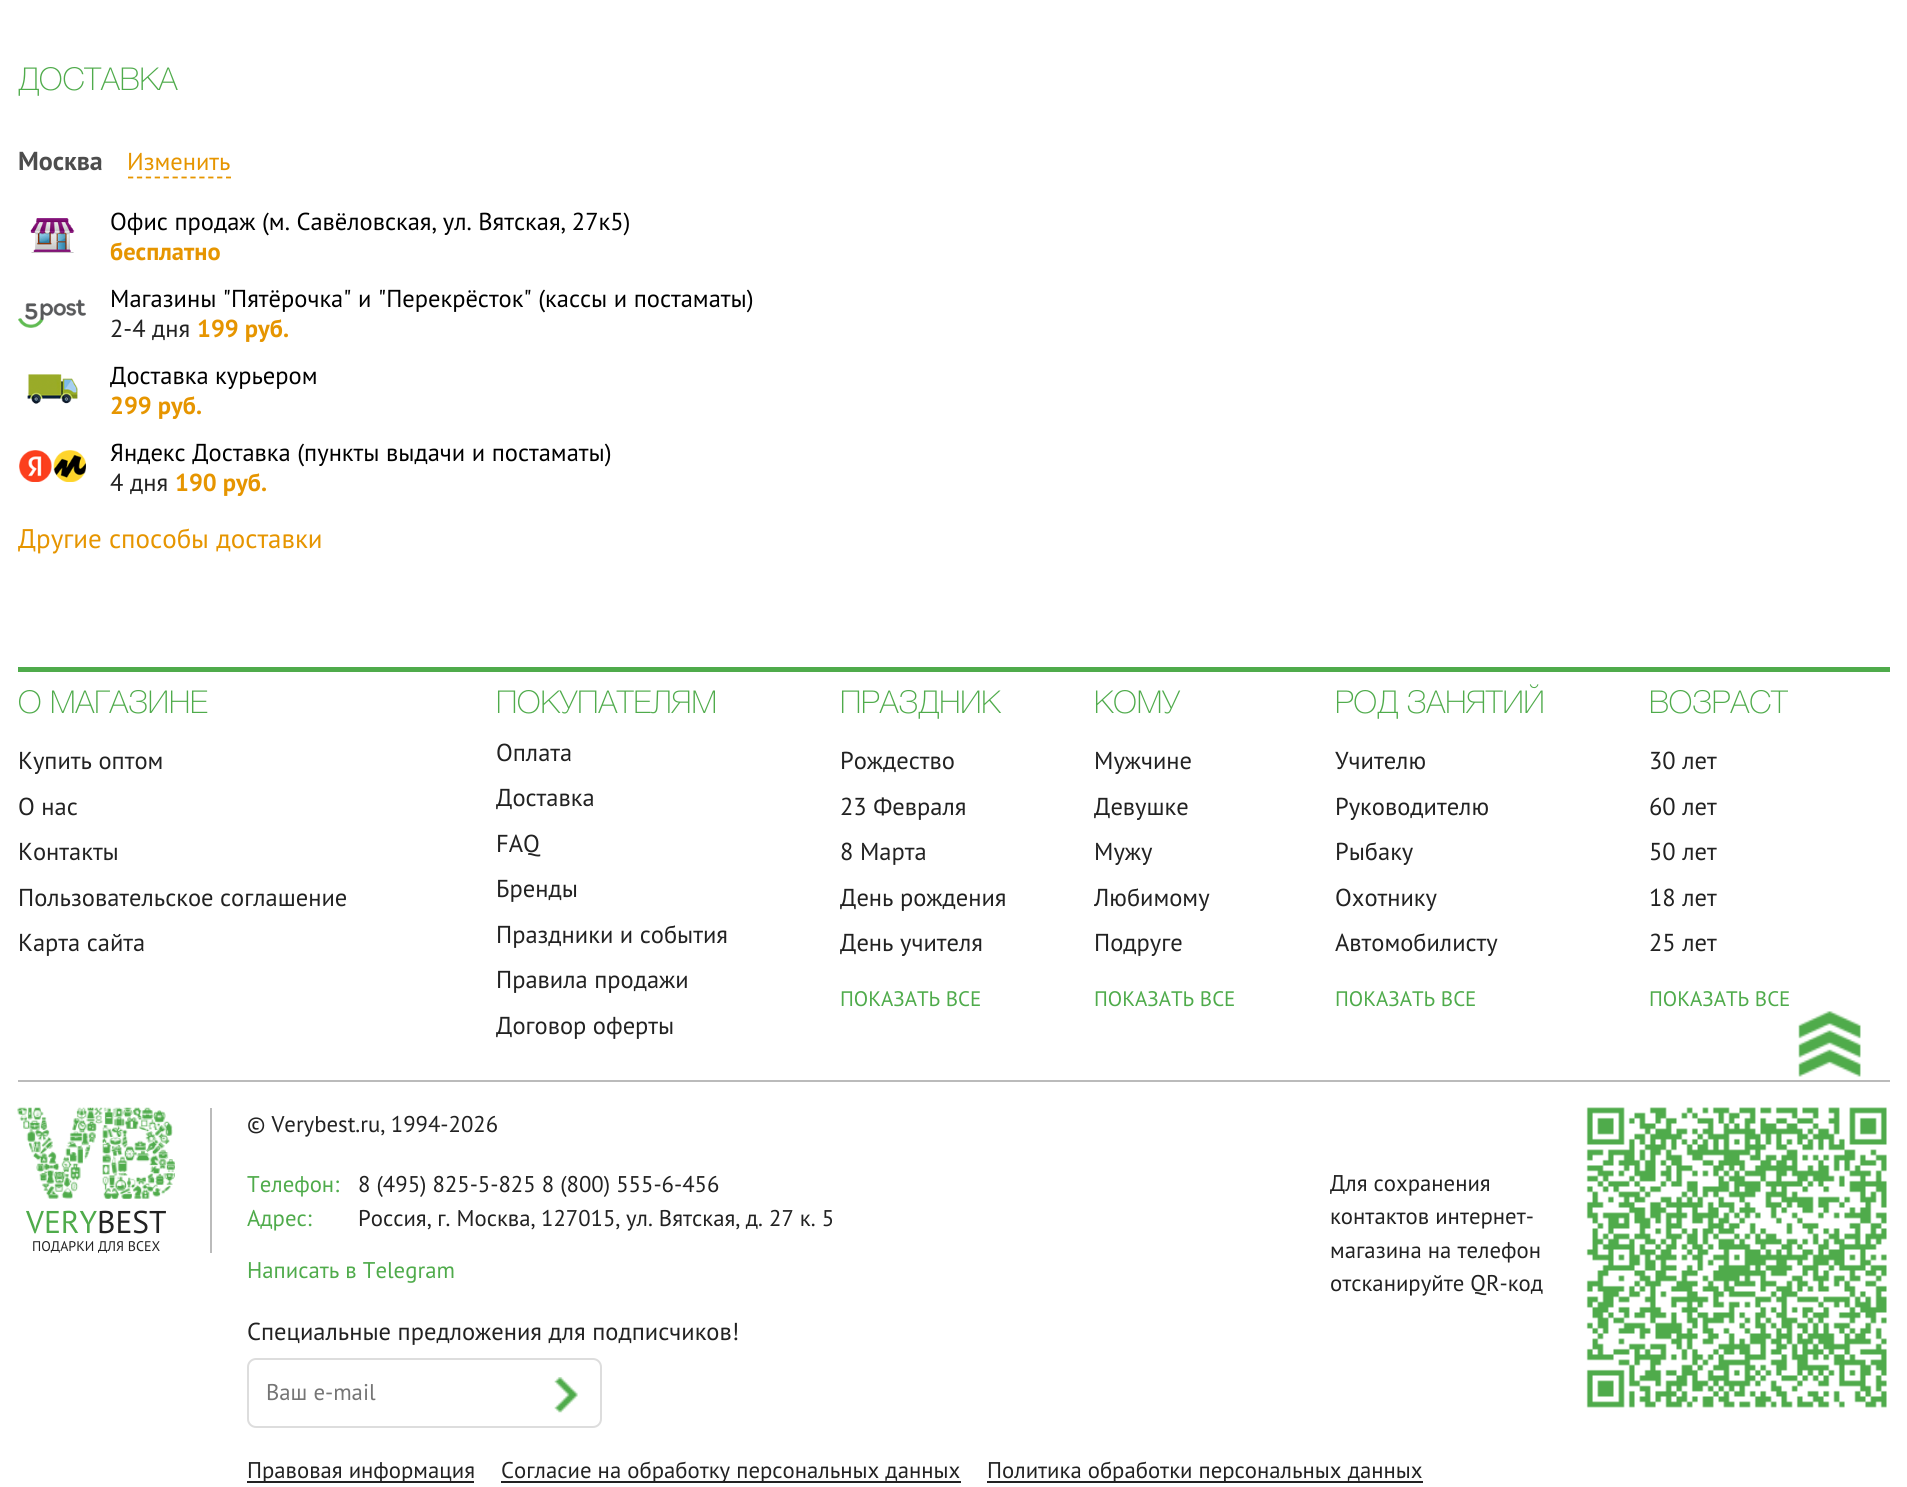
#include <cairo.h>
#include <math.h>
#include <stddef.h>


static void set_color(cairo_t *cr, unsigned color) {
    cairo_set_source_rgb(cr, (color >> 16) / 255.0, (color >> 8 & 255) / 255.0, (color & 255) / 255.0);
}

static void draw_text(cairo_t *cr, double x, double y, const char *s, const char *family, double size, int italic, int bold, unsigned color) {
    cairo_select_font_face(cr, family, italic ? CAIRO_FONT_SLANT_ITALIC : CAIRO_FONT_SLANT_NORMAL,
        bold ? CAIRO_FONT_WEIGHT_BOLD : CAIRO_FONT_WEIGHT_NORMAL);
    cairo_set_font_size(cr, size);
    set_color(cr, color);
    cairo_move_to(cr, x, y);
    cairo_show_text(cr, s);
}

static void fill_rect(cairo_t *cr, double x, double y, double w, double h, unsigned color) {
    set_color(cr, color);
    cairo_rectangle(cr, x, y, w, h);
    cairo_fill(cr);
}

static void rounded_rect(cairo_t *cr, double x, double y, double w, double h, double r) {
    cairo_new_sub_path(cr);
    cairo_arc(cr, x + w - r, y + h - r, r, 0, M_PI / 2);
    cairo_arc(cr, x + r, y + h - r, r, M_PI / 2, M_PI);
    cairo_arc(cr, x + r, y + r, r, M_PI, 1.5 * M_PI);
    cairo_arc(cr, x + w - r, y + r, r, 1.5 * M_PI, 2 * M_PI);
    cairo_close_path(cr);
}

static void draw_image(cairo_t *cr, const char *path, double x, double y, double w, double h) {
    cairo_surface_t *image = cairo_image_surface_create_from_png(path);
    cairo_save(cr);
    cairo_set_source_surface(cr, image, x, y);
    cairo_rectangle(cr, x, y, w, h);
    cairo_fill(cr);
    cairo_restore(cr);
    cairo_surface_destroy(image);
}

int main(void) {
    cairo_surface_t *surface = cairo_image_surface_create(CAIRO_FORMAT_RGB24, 1907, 1487);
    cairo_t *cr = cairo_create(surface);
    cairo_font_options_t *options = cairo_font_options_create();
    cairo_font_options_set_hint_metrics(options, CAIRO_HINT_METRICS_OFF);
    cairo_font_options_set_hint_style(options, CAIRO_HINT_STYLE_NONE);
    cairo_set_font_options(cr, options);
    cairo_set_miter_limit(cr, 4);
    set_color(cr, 0xFFFFFF);
    cairo_paint(cr);
    draw_text(cr, 18, 90, "ДОСТАВКА", "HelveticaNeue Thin", 31.5, 0, 0, 0x4FAB4B);
    draw_text(cr, 18, 170, "Москва", "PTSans", 26, 0, 1, 0x4D4D4D);
    draw_text(cr, 127, 170, "Изменить", "PTSans", 24.5, 0, 0, 0xE69500);
    cairo_new_path(cr);
    cairo_move_to(cr, 128, 177.5);
    cairo_line_to(cr, 231, 177.5);
    cairo_set_line_width(cr, 1.8);
    cairo_set_dash(cr, (double[]){5.25, 3.66}, 2, 0);
    cairo_stroke(cr);
    draw_image(cr, "assets/img1.png", 30, 218, 45, 35);
    draw_text(cr, 110, 230, "Офис продаж (м. Савёловская, ул. Вятская, 27к5)", "PTSans", 24.5, 0, 0, 0x000000);
    draw_text(cr, 110, 260, "бесплатно", "PTSans", 24.5, 0, 1, 0xE69500);
    draw_image(cr, "assets/img2.png", 18, 299, 68, 29);
    draw_text(cr, 110, 307, "Магазины \"Пятёрочка\" и \"Перекрёсток\" (кассы и постаматы)", "PTSans", 24.5, 0, 0, 0x000000);
    draw_text(cr, 110, 337, "2-4 дня", "PTSans", 24.5, 0, 0, 0x222222);
    draw_text(cr, 197, 337, "199 руб.", "PTSans", 24.5, 0, 1, 0xE69500);
    draw_image(cr, "assets/img3.png", 27, 374, 51, 30);
    draw_text(cr, 110, 384, "Доставка курьером", "PTSans", 24.5, 0, 0, 0x000000);
    draw_text(cr, 110, 414, "299 руб.", "PTSans", 24.5, 0, 1, 0xE69500);
    draw_image(cr, "assets/img4.png", 19, 450, 67, 32);
    draw_text(cr, 110, 461, "Яндекс Доставка (пункты выдачи и постаматы)", "PTSans", 24.5, 0, 0, 0x000000);
    draw_text(cr, 110, 491, "4 дня", "PTSans", 24.5, 0, 0, 0x222222);
    draw_text(cr, 175, 491, "190 руб.", "PTSans", 24.5, 0, 1, 0xE69500);
    draw_text(cr, 18, 548, "Другие способы доставки", "PTSans", 27, 0, 0, 0xE69500);
    fill_rect(cr, 18, 667, 1872, 5, 0x4FAB4B);
    draw_text(cr, 18, 713, "О МАГАЗИНЕ", "HelveticaNeue Thin", 31.5, 0, 0, 0x4FAB4B);
    draw_text(cr, 18, 769, "Купить оптом", "PTSans", 24.5, 0, 0, 0x222222);
    draw_text(cr, 18, 815, "О нас", "PTSans", 24.5, 0, 0, 0x222222);
    draw_text(cr, 18, 860, "Контакты", "PTSans", 24.5, 0, 0, 0x222222);
    draw_text(cr, 18, 906, "Пользовательское соглашение", "PTSans", 24.5, 0, 0, 0x222222);
    draw_text(cr, 18, 951, "Карта сайта", "PTSans", 24.5, 0, 0, 0x222222);
    draw_text(cr, 496, 713, "ПОКУПАТЕЛЯМ", "HelveticaNeue Thin", 31.5, 0, 0, 0x4FAB4B);
    draw_text(cr, 496, 761, "Оплата", "PTSans", 24.5, 0, 0, 0x222222);
    draw_text(cr, 496, 806, "Доставка", "PTSans", 24.5, 0, 0, 0x222222);
    draw_text(cr, 496, 852, "FAQ", "PTSans", 24.5, 0, 0, 0x222222);
    draw_text(cr, 496, 897, "Бренды", "PTSans", 24.5, 0, 0, 0x222222);
    draw_text(cr, 496, 943, "Праздники и события", "PTSans", 24.5, 0, 0, 0x222222);
    draw_text(cr, 496, 988, "Правила продажи", "PTSans", 24.5, 0, 0, 0x222222);
    draw_text(cr, 496, 1034, "Договор оферты", "PTSans", 24.5, 0, 0, 0x222222);
    draw_text(cr, 840, 713, "ПРАЗДНИК", "HelveticaNeue Thin", 31.5, 0, 0, 0x4FAB4B);
    draw_text(cr, 840, 769, "Рождество", "PTSans", 24.5, 0, 0, 0x222222);
    draw_text(cr, 840, 815, "23 Февраля", "PTSans", 24.5, 0, 0, 0x222222);
    draw_text(cr, 840, 860, "8 Марта", "PTSans", 24.5, 0, 0, 0x222222);
    draw_text(cr, 840, 906, "День рождения", "PTSans", 24.5, 0, 0, 0x222222);
    draw_text(cr, 840, 951, "День учителя", "PTSans", 24.5, 0, 0, 0x222222);
    draw_text(cr, 840, 1006, "ПОКАЗАТЬ ВСЕ", "PTSans", 21, 0, 0, 0x4FAB4B);
    draw_text(cr, 1094, 713, "КОМУ", "HelveticaNeue Thin", 31.5, 0, 0, 0x4FAB4B);
    draw_text(cr, 1094, 769, "Мужчине", "PTSans", 24.5, 0, 0, 0x222222);
    draw_text(cr, 1094, 815, "Девушке", "PTSans", 24.5, 0, 0, 0x222222);
    draw_text(cr, 1094, 860, "Мужу", "PTSans", 24.5, 0, 0, 0x222222);
    draw_text(cr, 1094, 906, "Любимому", "PTSans", 24.5, 0, 0, 0x222222);
    draw_text(cr, 1094, 951, "Подруге", "PTSans", 24.5, 0, 0, 0x222222);
    draw_text(cr, 1094, 1006, "ПОКАЗАТЬ ВСЕ", "PTSans", 21, 0, 0, 0x4FAB4B);
    draw_text(cr, 1335, 713, "РОД ЗАНЯТИЙ", "HelveticaNeue Thin", 31.5, 0, 0, 0x4FAB4B);
    draw_text(cr, 1335, 769, "Учителю", "PTSans", 24.5, 0, 0, 0x222222);
    draw_text(cr, 1335, 815, "Руководителю", "PTSans", 24.5, 0, 0, 0x222222);
    draw_text(cr, 1335, 860, "Рыбаку", "PTSans", 24.5, 0, 0, 0x222222);
    draw_text(cr, 1335, 906, "Охотнику", "PTSans", 24.5, 0, 0, 0x222222);
    draw_text(cr, 1335, 951, "Автомобилисту", "PTSans", 24.5, 0, 0, 0x222222);
    draw_text(cr, 1335, 1006, "ПОКАЗАТЬ ВСЕ", "PTSans", 21, 0, 0, 0x4FAB4B);
    draw_text(cr, 1649, 713, "ВОЗРАСТ", "HelveticaNeue Thin", 31.5, 0, 0, 0x4FAB4B);
    draw_text(cr, 1649, 769, "30 лет", "PTSans", 24.5, 0, 0, 0x222222);
    draw_text(cr, 1649, 815, "60 лет", "PTSans", 24.5, 0, 0, 0x222222);
    draw_text(cr, 1649, 860, "50 лет", "PTSans", 24.5, 0, 0, 0x222222);
    draw_text(cr, 1649, 906, "18 лет", "PTSans", 24.5, 0, 0, 0x222222);
    draw_text(cr, 1649, 951, "25 лет", "PTSans", 24.5, 0, 0, 0x222222);
    draw_text(cr, 1649, 1006, "ПОКАЗАТЬ ВСЕ", "PTSans", 21, 0, 0, 0x4FAB4B);
    fill_rect(cr, 18, 1080, 1872, 2, 0xBBBBBB);
    draw_image(cr, "assets/img5.png", 17, 1107, 158, 92);
    draw_text(cr, 26, 1233, "VERY", "PTSans", 31.5, 0, 0, 0x4FAB4B);
    draw_text(cr, 97, 1233, "BEST", "PTSans", 31.5, 0, 0, 0x222222);
    draw_text(cr, 32, 1251, "ПОДАРКИ ДЛЯ ВСЕХ", "PTSans", 14, 0, 0, 0x222222);
    fill_rect(cr, 210, 1108, 2, 145, 0xBBBBBB);
    draw_text(cr, 247, 1132, "© Verybest.ru, 1994-2026", "PTSans", 22.75, 0, 0, 0x222222);
    draw_text(cr, 247, 1192, "Телефон:", "PTSans", 22.75, 0, 0, 0x4FAB4B);
    draw_text(cr, 358, 1192, "8 (495) 825-5-825 8 (800) 555-6-456", "PTSans", 22.75, 0, 0, 0x222222);
    draw_text(cr, 1330, 1191, "Для сохранения", "PTSans", 22.75, 0, 0, 0x222222);
    draw_text(cr, 1330, 1224, "контактов интернет-", "PTSans", 22.75, 0, 0, 0x222222);
    draw_text(cr, 1330, 1258, "магазина на телефон", "PTSans", 22.75, 0, 0, 0x222222);
    draw_text(cr, 1330, 1291, "отсканируйте QR-код", "PTSans", 22.75, 0, 0, 0x222222);
    draw_text(cr, 247, 1226, "Адрес:", "PTSans", 22.75, 0, 0, 0x4FAB4B);
    draw_text(cr, 358, 1226, "Россия, г. Москва, 127015, ул. Вятская, д. 27 к. 5", "PTSans", 22.75, 0, 0, 0x222222);
    draw_text(cr, 247, 1278, "Написать в Telegram", "PTSans", 22.75, 0, 0, 0x4FAB4B);
    draw_text(cr, 247, 1340, "Специальные предложения для подписчиков!", "PTSans", 24.5, 0, 0, 0x222222);
    rounded_rect(cr, 248, 1359, 353, 68, 8);
    set_color(cr, 0xDDDDDD);
    cairo_set_line_width(cr, 2);
    cairo_set_dash(cr, NULL, 0, 0);
    cairo_stroke(cr);
    draw_text(cr, 266, 1400, "Ваш e-mail", "PTSans", 22.75, 0, 0, 0x757575);
    draw_image(cr, "assets/img6.png", 554, 1377, 24, 36);
    fill_rect(cr, 247, 1481, 227, 2, 0x222222);
    draw_text(cr, 247, 1478, "Правовая информация", "PTSans", 22.75, 0, 0, 0x222222);
    fill_rect(cr, 501, 1481, 460, 2, 0x222222);
    draw_text(cr, 501, 1478, "Согласие на обработку персональных данных", "PTSans", 22.75, 0, 0, 0x222222);
    fill_rect(cr, 987, 1481, 436, 2, 0x222222);
    draw_text(cr, 987, 1478, "Политика обработки персональных данных", "PTSans", 22.75, 0, 0, 0x222222);
    draw_image(cr, "assets/img7.png", 1586, 1107, 301, 301);
    draw_image(cr, "assets/img8.png", 1798, 1011, 63, 66);
    cairo_surface_write_to_png(surface, "output.png");
    cairo_font_options_destroy(options);
    cairo_destroy(cr);
    cairo_surface_destroy(surface);
    return 0;
}
